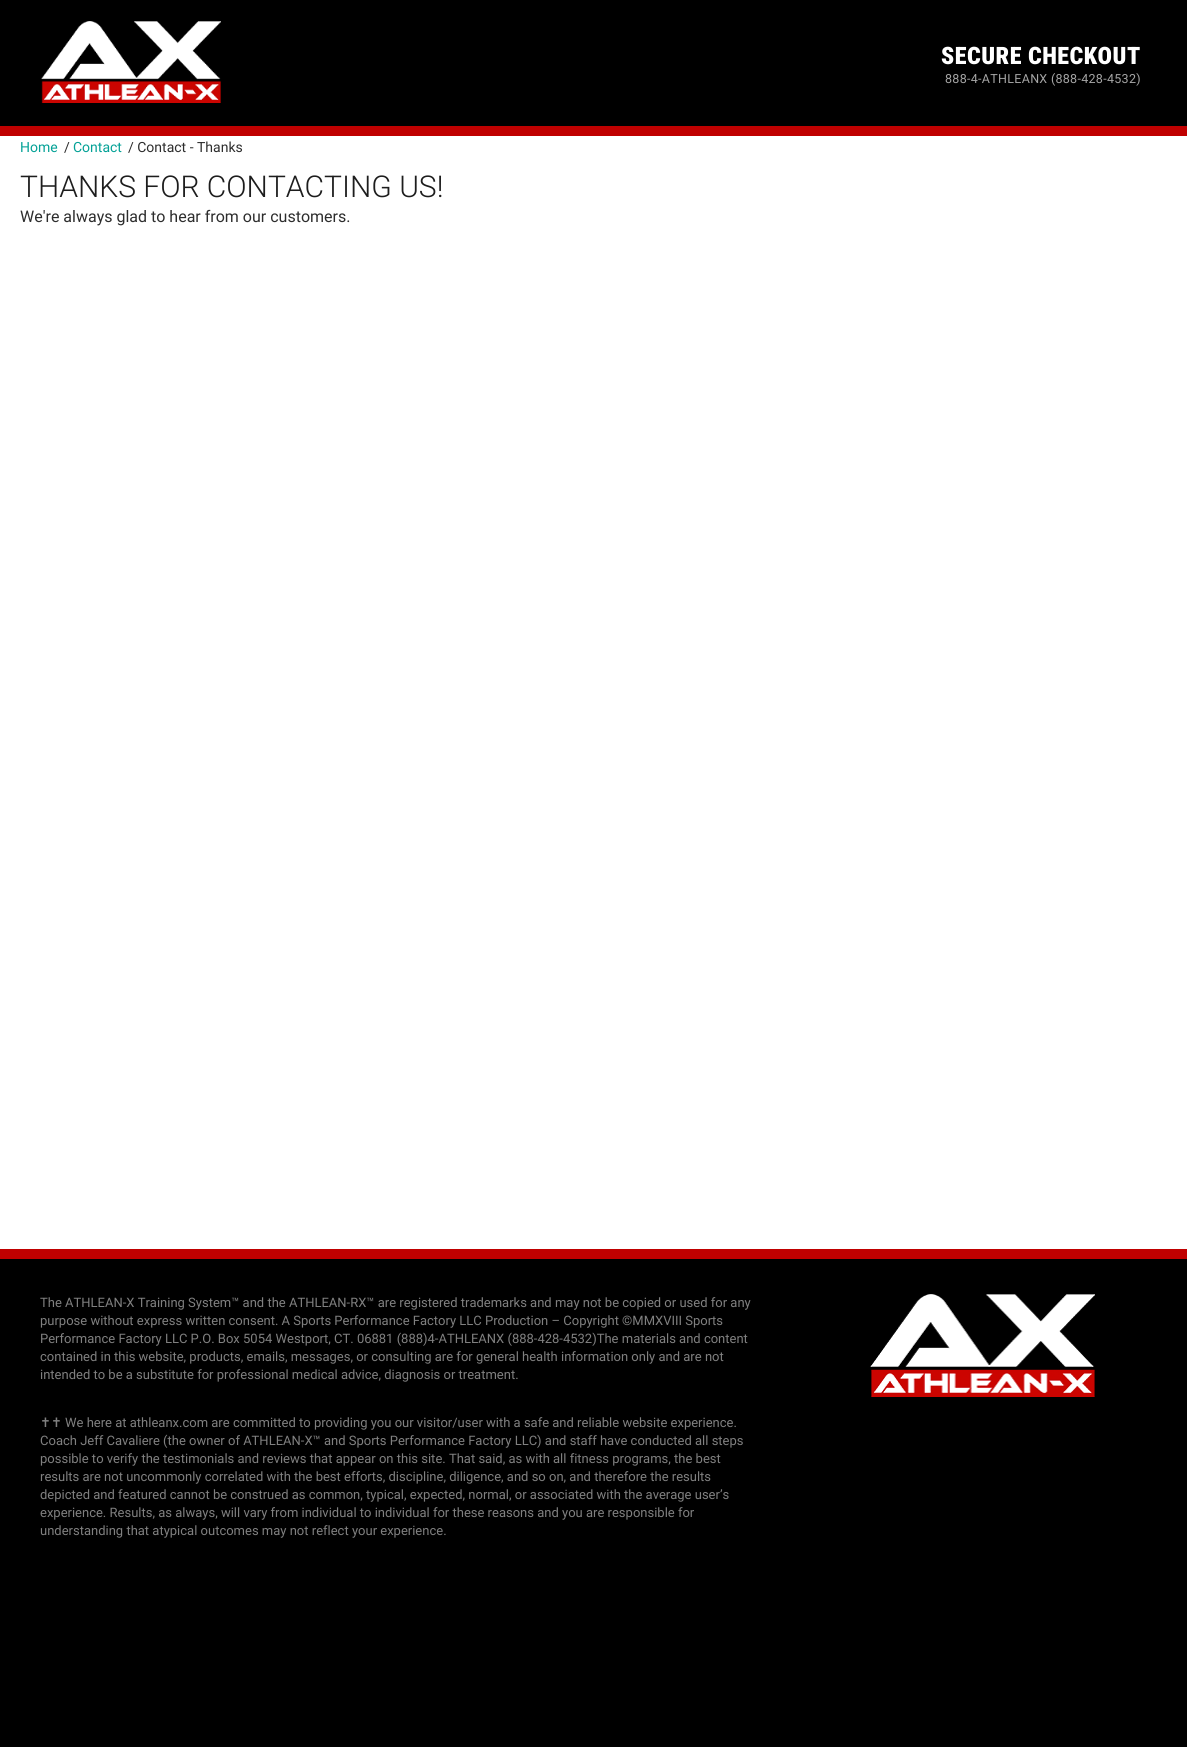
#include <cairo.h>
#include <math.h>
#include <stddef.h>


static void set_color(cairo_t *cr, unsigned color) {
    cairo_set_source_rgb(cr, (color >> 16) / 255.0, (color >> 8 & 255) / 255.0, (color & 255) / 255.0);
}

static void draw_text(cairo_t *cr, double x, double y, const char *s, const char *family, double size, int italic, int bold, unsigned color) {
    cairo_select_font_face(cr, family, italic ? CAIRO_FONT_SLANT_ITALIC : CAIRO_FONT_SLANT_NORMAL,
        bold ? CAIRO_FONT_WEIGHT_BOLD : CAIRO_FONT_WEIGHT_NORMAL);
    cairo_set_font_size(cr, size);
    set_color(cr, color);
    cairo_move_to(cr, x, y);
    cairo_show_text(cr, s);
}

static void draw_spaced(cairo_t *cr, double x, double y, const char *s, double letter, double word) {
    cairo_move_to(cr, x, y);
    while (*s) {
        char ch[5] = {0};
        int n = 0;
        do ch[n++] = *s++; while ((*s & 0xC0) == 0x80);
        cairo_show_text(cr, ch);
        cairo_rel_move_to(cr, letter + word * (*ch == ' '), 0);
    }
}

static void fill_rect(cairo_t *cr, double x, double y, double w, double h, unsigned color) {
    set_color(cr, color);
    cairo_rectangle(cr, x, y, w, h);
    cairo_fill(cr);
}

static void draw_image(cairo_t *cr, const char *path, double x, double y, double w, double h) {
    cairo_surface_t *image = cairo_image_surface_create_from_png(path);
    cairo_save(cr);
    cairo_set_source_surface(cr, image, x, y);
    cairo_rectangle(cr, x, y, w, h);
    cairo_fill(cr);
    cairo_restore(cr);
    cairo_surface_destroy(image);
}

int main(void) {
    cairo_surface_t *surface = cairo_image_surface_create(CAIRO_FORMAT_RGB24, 1187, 1747);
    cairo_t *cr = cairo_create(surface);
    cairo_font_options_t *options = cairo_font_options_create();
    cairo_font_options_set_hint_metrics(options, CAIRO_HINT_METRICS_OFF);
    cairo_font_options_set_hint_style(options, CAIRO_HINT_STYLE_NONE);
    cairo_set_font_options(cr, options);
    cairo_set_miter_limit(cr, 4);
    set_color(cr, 0x000000);
    cairo_paint(cr);
    fill_rect(cr, 0, 136, 1187, 1113, 0xFFFFFF);
    fill_rect(cr, 0, 126, 1187, 10, 0xC00000);
    draw_image(cr, "assets/img1.png", 41, 21, 180, 82);
    cairo_select_font_face(cr, "Roboto Condensed Black", CAIRO_FONT_SLANT_NORMAL, CAIRO_FONT_WEIGHT_NORMAL);
    cairo_set_font_size(cr, 24);
    set_color(cr, 0xFFFFFF);
    draw_spaced(cr, 941, 64, "SECURE CHECKOUT", 0.5, 0);
    cairo_select_font_face(cr, "Roboto", CAIRO_FONT_SLANT_NORMAL, CAIRO_FONT_WEIGHT_NORMAL);
    cairo_set_font_size(cr, 12.5);
    set_color(cr, 0xA5A5A5);
    draw_spaced(cr, 945, 83, "888-4-ATHLEANX (888-428-4532)", 0.3, 0);
    draw_text(cr, 20, 152, "Home", "Roboto", 14, 0, 0, 0x03A196);
    draw_text(cr, 64, 152, "/", "Roboto", 14, 0, 0, 0x2D2D2D);
    draw_text(cr, 73, 152, "Contact", "Roboto", 14, 0, 0, 0x03A196);
    draw_text(cr, 128, 152, "/ Contact - Thanks", "Roboto", 14, 0, 0, 0x2D2D2D);
    draw_text(cr, 20, 197, "THANKS FOR CONTACTING US!", "Roboto Light", 30, 0, 0, 0x1D1D1D);
    draw_text(cr, 20, 222, "We're always glad to hear from our customers.", "Roboto", 16, 0, 0, 0x2D2D2D);
    fill_rect(cr, 0, 1249, 1187, 10, 0xC00000);
    draw_text(cr, 40, 1307, "The ATHLEAN-X Training System™ and the ATHLEAN-RX™ are registered trademarks and may not be copied or used for any", "Roboto", 13, 0, 0, 0x808080);
    draw_text(cr, 40, 1325, "purpose without express written consent. A Sports Performance Factory LLC Production – Copyright ©MMXVIII Sports", "Roboto", 13, 0, 0, 0x808080);
    draw_text(cr, 40, 1343, "Performance Factory LLC P.O. Box 5054 Westport, CT. 06881 (888)4-ATHLEANX (888-428-4532)The materials and content", "Roboto", 13, 0, 0, 0x808080);
    draw_text(cr, 40, 1361, "contained in this website, products, emails, messages, or consulting are for general health information only and are not", "Roboto", 13, 0, 0, 0x808080);
    draw_text(cr, 40, 1379, "intended to be a substitute for professional medical advice, diagnosis or treatment.", "Roboto", 13, 0, 0, 0x808080);
    draw_text(cr, 40, 1427, "✝✝", "DejaVu Sans", 13, 0, 0, 0x808080);
    draw_text(cr, 65, 1427, "We here at athleanx.com are committed to providing you our visitor/user with a safe and reliable website experience.", "Roboto", 13, 0, 0, 0x808080);
    draw_text(cr, 40, 1445, "Coach Jeff Cavaliere (the owner of ATHLEAN-X™ and Sports Performance Factory LLC) and staff have conducted all steps", "Roboto", 13, 0, 0, 0x808080);
    draw_text(cr, 40, 1463, "possible to verify the testimonials and reviews that appear on this site. That said, as with all fitness programs, the best", "Roboto", 13, 0, 0, 0x808080);
    draw_text(cr, 40, 1481, "results are not uncommonly correlated with the best efforts, discipline, diligence, and so on, and therefore the results", "Roboto", 13, 0, 0, 0x808080);
    draw_text(cr, 40, 1499, "depicted and featured cannot be construed as common, typical, expected, normal, or associated with the average user’s", "Roboto", 13, 0, 0, 0x808080);
    draw_text(cr, 40, 1517, "experience. Results, as always, will vary from individual to individual for these reasons and you are responsible for", "Roboto", 13, 0, 0, 0x808080);
    draw_text(cr, 40, 1535, "understanding that atypical outcomes may not reflect your experience.", "Roboto", 13, 0, 0, 0x808080);
    draw_image(cr, "assets/img2.png", 870, 1294, 225, 103);
    cairo_surface_write_to_png(surface, "output.png");
    cairo_font_options_destroy(options);
    cairo_destroy(cr);
    cairo_surface_destroy(surface);
    return 0;
}
